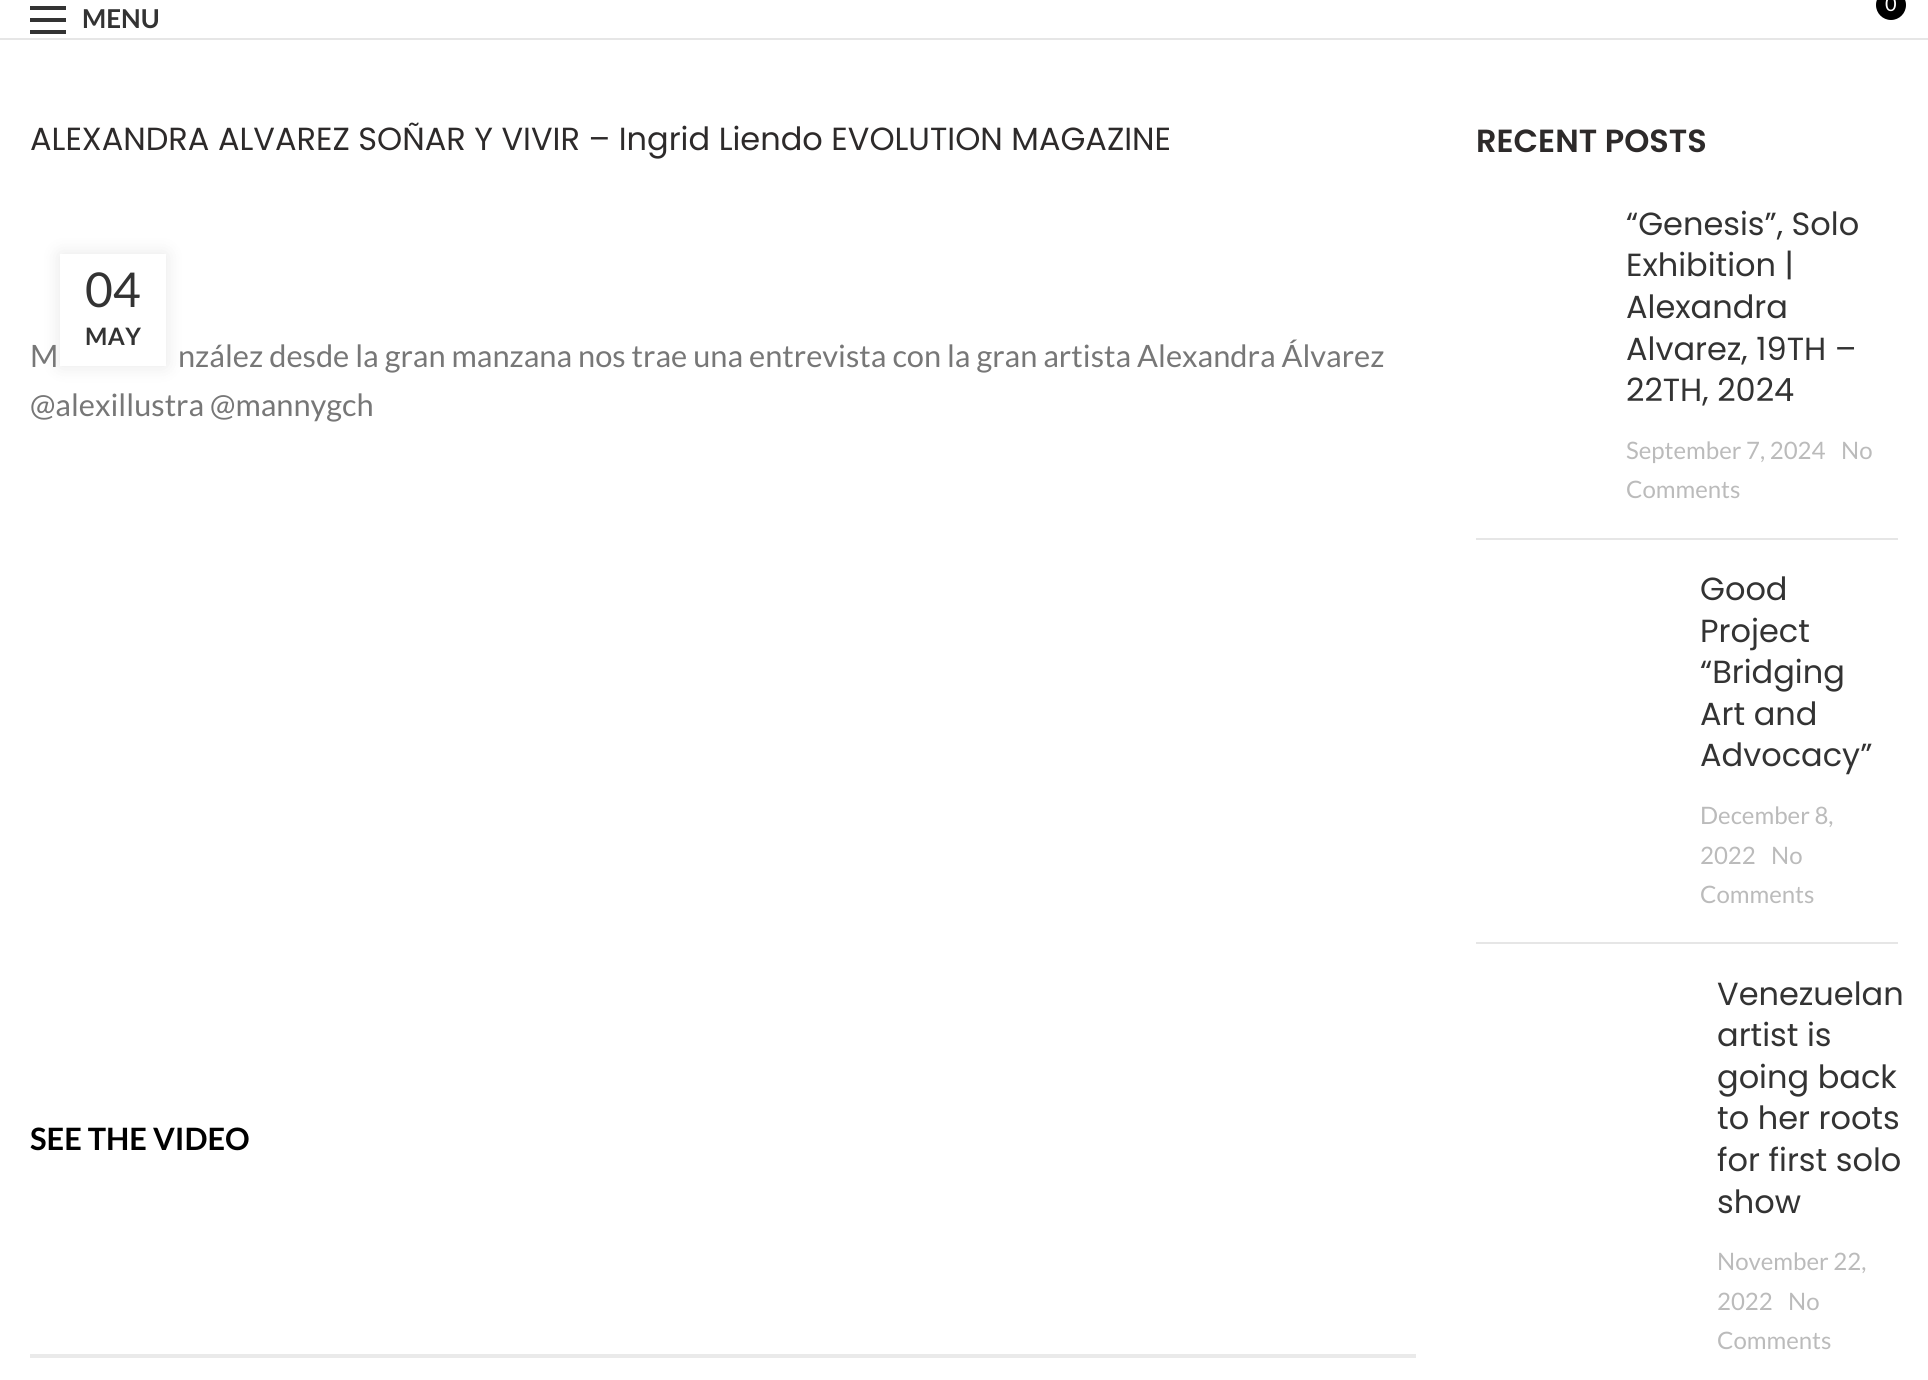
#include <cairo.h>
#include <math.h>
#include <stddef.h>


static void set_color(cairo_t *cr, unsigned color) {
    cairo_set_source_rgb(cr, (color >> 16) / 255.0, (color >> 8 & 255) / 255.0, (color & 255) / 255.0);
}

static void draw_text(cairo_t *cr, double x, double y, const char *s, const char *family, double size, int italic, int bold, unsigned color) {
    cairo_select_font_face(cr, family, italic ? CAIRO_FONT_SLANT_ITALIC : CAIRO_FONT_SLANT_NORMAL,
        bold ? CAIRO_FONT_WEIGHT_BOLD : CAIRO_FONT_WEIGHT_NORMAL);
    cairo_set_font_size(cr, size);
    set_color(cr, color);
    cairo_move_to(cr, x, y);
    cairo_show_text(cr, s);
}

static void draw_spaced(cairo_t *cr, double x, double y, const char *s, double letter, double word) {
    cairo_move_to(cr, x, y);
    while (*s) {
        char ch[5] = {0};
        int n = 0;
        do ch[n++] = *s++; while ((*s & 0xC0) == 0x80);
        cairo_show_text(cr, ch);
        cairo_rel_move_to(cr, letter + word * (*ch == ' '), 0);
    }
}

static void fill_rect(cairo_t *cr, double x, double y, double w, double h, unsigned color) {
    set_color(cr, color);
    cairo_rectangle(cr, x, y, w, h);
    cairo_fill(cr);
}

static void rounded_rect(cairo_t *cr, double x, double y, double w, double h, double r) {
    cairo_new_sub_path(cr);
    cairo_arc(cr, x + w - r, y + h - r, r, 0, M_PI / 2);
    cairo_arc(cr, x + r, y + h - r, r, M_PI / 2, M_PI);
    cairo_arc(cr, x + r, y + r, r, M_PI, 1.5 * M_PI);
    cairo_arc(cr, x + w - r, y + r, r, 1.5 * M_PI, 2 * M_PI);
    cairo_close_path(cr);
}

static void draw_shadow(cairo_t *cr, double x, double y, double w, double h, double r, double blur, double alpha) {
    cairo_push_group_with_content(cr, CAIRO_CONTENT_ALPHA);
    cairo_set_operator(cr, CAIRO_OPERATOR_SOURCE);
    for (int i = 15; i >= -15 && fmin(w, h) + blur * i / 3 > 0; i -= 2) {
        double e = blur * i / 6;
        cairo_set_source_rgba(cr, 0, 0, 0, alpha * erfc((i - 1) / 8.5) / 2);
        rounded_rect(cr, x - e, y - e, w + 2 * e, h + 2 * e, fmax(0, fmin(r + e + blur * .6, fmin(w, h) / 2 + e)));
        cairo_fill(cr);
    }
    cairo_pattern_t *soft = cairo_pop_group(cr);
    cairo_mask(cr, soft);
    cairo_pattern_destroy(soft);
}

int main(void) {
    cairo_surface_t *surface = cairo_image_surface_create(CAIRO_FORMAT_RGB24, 1928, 1380);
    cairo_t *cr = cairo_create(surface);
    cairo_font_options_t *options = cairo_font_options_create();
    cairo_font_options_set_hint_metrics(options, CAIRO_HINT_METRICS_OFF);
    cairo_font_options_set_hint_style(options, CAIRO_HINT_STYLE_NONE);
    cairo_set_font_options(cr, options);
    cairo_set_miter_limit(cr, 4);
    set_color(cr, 0xFFFFFF);
    cairo_paint(cr);
    fill_rect(cr, 0, 38, 1928, 2, 0xE6E6E6);
    set_color(cr, 0x000000);
    cairo_arc(cr, 1891, 5, 15, 0, 2 * M_PI);
    cairo_fill(cr);
    draw_text(cr, 1885, 11, "0", "Lato", 20, 0, 0, 0xFFFFFF);
    fill_rect(cr, 30, 18, 36, 4, 0x333333);
    fill_rect(cr, 30, 6, 36, 4, 0x333333);
    fill_rect(cr, 30, 30, 36, 4, 0x333333);
    draw_text(cr, 82, 28, "MENU", "Lato", 26, 0, 1, 0x333333);
    draw_text(cr, 30, 150, "ALEXANDRA ALVAREZ SOÑAR Y VIVIR – Ingrid Liendo EVOLUTION MAGAZINE", "Poppins", 32, 0, 0, 0x2D2A2A);
    set_color(cr, 0x000000);
    draw_shadow(cr, 60, 254, 106, 112, 0, 9, 0.1);
    fill_rect(cr, 60, 254, 106, 112, 0xFFFFFF);
    draw_text(cr, 85, 307, "04", "Lato", 48, 0, 0, 0x333333);
    cairo_select_font_face(cr, "Lato", CAIRO_FONT_SLANT_NORMAL, CAIRO_FONT_WEIGHT_BOLD);
    cairo_set_font_size(cr, 24);
    draw_spaced(cr, 85, 345, "MAY", 0.5, 0);
    draw_text(cr, 30, 367, "M", "Lato", 30.8, 0, 0, 0x777777);
    draw_text(cr, 178, 367, "nzález desde la gran manzana nos trae una entrevista con la gran artista Alexandra Álvarez", "Lato", 30.8, 0, 0, 0x777777);
    draw_text(cr, 30, 416, "@alexillustra @mannygch", "Lato", 30.8, 0, 0, 0x777777);
    draw_text(cr, 30, 1150, "SEE THE VIDEO", "Lato", 30.8, 0, 1, 0x000000);
    fill_rect(cr, 30, 1354, 1386, 4, 0xEAEAEA);
    draw_text(cr, 1476, 152, "RECENT POSTS", "Poppins SemiBold", 32, 0, 0, 0x2D2A2A);
    fill_rect(cr, 1476, 538, 422, 2, 0xE6E6E6);
    draw_text(cr, 1626, 235, "“Genesis”, Solo", "Poppins", 32, 0, 0, 0x333333);
    draw_text(cr, 1626, 276, "Exhibition |", "Poppins", 32, 0, 0, 0x333333);
    draw_text(cr, 1626, 318, "Alexandra", "Poppins", 32, 0, 0, 0x333333);
    draw_text(cr, 1626, 360, "Alvarez, 19TH –", "Poppins", 32, 0, 0, 0x333333);
    draw_text(cr, 1626, 401, "22TH, 2024", "Poppins", 32, 0, 0, 0x333333);
    draw_text(cr, 1626, 459, "September 7, 2024", "Lato", 24, 0, 0, 0xBBBBBB);
    draw_text(cr, 1841, 459, "No", "Lato", 24, 0, 0, 0xBBBBBB);
    draw_text(cr, 1626, 498, "Comments", "Lato", 24, 0, 0, 0xBBBBBB);
    fill_rect(cr, 1476, 942, 422, 2, 0xE6E6E6);
    draw_text(cr, 1700, 600, "Good", "Poppins", 32, 0, 0, 0x333333);
    draw_text(cr, 1700, 642, "Project", "Poppins", 32, 0, 0, 0x333333);
    draw_text(cr, 1700, 683, "“Bridging", "Poppins", 32, 0, 0, 0x333333);
    draw_text(cr, 1700, 725, "Art and", "Poppins", 32, 0, 0, 0x333333);
    draw_text(cr, 1700, 766, "Advocacy”", "Poppins", 32, 0, 0, 0x333333);
    draw_text(cr, 1700, 824, "December 8,", "Lato", 24, 0, 0, 0xBBBBBB);
    draw_text(cr, 1700, 864, "2022", "Lato", 24, 0, 0, 0xBBBBBB);
    draw_text(cr, 1771, 864, "No", "Lato", 24, 0, 0, 0xBBBBBB);
    draw_text(cr, 1700, 903, "Comments", "Lato", 24, 0, 0, 0xBBBBBB);
    draw_text(cr, 1717, 1005, "Venezuelan", "Poppins", 32, 0, 0, 0x333333);
    draw_text(cr, 1717, 1046, "artist is", "Poppins", 32, 0, 0, 0x333333);
    draw_text(cr, 1717, 1088, "going back", "Poppins", 32, 0, 0, 0x333333);
    draw_text(cr, 1717, 1129, "to her roots", "Poppins", 32, 0, 0, 0x333333);
    draw_text(cr, 1717, 1171, "for first solo", "Poppins", 32, 0, 0, 0x333333);
    draw_text(cr, 1717, 1213, "show", "Poppins", 32, 0, 0, 0x333333);
    draw_text(cr, 1717, 1270, "November 22,", "Lato", 24, 0, 0, 0xBBBBBB);
    draw_text(cr, 1717, 1310, "2022", "Lato", 24, 0, 0, 0xBBBBBB);
    draw_text(cr, 1788, 1310, "No", "Lato", 24, 0, 0, 0xBBBBBB);
    draw_text(cr, 1717, 1349, "Comments", "Lato", 24, 0, 0, 0xBBBBBB);
    cairo_surface_write_to_png(surface, "output.png");
    cairo_font_options_destroy(options);
    cairo_destroy(cr);
    cairo_surface_destroy(surface);
    return 0;
}
